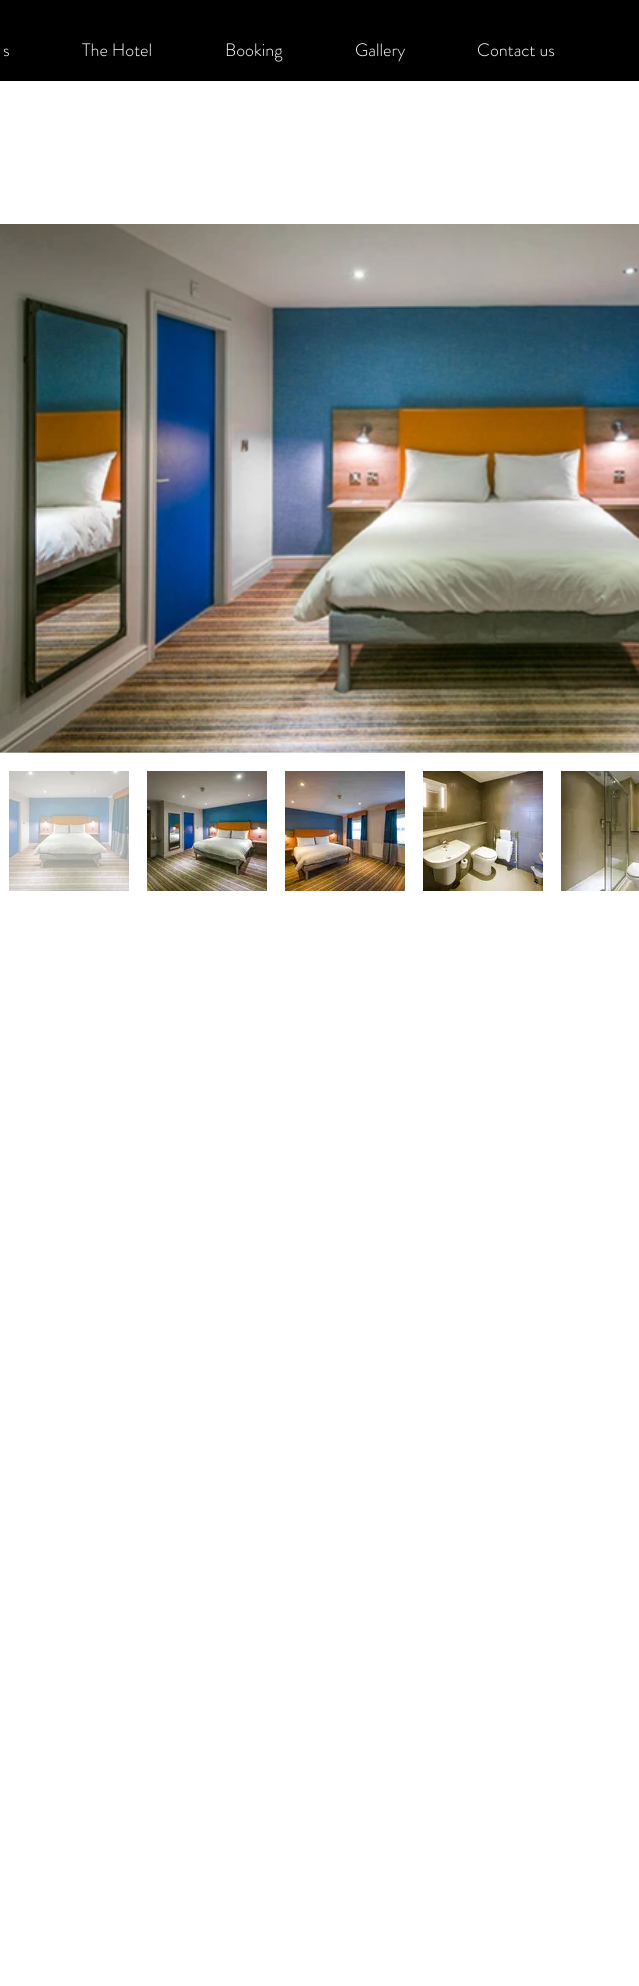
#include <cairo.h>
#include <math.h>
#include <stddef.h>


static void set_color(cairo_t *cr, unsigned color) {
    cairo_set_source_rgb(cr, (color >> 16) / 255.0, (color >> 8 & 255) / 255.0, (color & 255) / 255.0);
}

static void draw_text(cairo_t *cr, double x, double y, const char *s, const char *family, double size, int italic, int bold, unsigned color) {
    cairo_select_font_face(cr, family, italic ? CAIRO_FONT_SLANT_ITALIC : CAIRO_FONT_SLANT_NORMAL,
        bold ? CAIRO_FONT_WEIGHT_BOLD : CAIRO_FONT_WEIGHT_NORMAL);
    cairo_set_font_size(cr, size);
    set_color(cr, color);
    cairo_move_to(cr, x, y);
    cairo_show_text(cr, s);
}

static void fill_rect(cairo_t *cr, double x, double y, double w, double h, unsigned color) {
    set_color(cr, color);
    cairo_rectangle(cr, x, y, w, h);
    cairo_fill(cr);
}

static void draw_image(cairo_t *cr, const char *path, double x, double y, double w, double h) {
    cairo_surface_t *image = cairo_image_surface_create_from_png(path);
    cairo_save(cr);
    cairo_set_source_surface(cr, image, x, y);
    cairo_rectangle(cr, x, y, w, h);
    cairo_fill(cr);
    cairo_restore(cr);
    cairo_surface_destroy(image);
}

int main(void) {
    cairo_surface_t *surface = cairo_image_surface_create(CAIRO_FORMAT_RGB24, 639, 1986);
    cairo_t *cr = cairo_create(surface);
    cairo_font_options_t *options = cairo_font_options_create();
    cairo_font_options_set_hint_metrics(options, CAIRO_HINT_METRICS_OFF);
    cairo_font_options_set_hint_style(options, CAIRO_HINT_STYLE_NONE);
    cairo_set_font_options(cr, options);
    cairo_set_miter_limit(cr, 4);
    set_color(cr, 0xFFFFFF);
    cairo_paint(cr);
    fill_rect(cr, 0, 0, 639, 81, 0x000000);
    draw_text(cr, 3, 56, "s", "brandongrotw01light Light", 18, 0, 0, 0xFFFFFF);
    draw_text(cr, 82, 56, "The Hotel", "brandongrotw01light Light", 18, 0, 0, 0xFFFFFF);
    draw_text(cr, 225, 56, "Booking", "brandongrotw01light Light", 18, 0, 0, 0xFFFFFF);
    draw_text(cr, 355, 56, "Gallery", "brandongrotw01light Light", 18, 0, 0, 0xFFFFFF);
    draw_text(cr, 477, 56, "Contact us", "brandongrotw01light Light", 18, 0, 0, 0xFFFFFF);
    fill_rect(cr, 0, 752, 639, 1, 0xFBFBFB);
    draw_image(cr, "assets/img1.png", 0, 224, 639, 529);
    draw_image(cr, "assets/img2.png", 9, 771, 120, 120);
    draw_image(cr, "assets/img3.png", 147, 771, 120, 120);
    draw_image(cr, "assets/img4.png", 285, 771, 120, 120);
    draw_image(cr, "assets/img5.png", 423, 771, 120, 120);
    draw_image(cr, "assets/img6.png", 561, 771, 78, 120);
    cairo_surface_write_to_png(surface, "output.png");
    cairo_font_options_destroy(options);
    cairo_destroy(cr);
    cairo_surface_destroy(surface);
    return 0;
}
